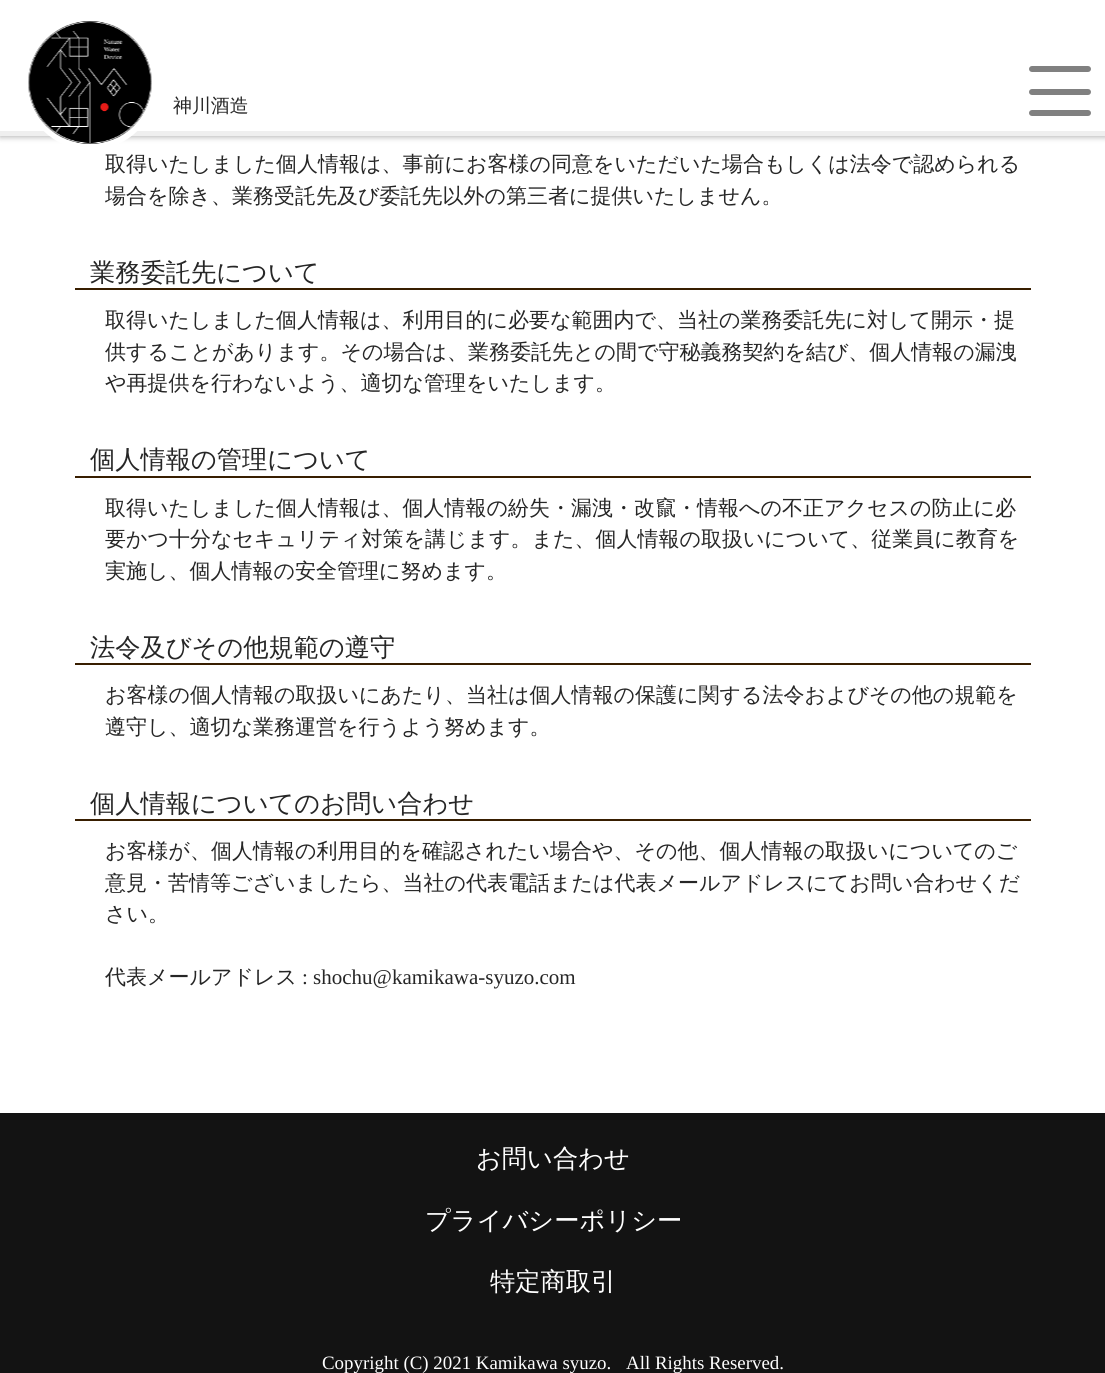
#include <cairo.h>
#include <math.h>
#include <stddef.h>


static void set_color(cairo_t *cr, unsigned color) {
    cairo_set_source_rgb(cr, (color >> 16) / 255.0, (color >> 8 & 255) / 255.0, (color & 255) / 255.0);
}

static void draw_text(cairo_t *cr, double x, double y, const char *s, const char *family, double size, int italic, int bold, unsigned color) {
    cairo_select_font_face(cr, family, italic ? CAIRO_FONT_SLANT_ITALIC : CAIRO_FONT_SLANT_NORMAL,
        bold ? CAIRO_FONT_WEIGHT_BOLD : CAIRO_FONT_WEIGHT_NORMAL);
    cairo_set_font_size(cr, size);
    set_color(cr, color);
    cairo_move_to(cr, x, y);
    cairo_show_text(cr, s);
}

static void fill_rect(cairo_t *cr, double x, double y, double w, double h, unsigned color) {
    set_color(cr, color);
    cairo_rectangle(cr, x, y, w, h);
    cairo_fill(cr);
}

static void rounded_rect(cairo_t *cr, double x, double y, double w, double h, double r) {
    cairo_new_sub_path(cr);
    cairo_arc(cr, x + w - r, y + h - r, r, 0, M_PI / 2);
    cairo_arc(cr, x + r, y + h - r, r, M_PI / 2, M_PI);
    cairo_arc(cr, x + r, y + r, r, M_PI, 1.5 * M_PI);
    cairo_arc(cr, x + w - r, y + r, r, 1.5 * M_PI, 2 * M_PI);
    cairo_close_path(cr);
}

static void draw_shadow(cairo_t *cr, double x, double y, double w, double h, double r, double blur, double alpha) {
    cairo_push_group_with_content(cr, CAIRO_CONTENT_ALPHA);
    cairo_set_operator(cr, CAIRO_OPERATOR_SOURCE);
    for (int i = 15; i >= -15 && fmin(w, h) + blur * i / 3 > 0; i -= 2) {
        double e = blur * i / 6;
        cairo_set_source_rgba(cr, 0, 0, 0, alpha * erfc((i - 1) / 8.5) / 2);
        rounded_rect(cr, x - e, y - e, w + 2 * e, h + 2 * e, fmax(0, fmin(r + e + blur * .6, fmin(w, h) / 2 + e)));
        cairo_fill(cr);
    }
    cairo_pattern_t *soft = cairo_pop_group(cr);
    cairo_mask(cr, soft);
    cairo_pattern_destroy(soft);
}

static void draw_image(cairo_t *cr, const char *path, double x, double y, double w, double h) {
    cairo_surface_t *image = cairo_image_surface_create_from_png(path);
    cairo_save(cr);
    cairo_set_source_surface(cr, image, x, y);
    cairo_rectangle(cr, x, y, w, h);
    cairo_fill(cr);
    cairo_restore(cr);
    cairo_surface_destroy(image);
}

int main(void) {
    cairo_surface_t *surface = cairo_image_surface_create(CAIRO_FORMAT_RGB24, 1105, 1373);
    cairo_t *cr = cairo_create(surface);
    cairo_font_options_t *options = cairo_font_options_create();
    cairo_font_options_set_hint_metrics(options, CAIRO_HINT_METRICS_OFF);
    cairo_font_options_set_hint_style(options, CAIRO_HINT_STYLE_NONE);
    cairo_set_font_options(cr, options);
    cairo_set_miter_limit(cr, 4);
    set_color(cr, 0xFFFFFF);
    cairo_paint(cr);
    set_color(cr, 0x000000);
    draw_shadow(cr, 0, 2, 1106, 135, 0, 3, 0.3);
    fill_rect(cr, 0, 0, 1105, 131, 0xFFFFFF);
    fill_rect(cr, 0, 131, 1105, 5, 0xEFEFEF);
    cairo_arc(cr, 90.5, 82.5, 64.5, 0, 2 * M_PI);
    set_color(cr, 0xFFFFFF);
    cairo_set_line_width(cr, 6);
    cairo_stroke(cr);
    draw_image(cr, "assets/img1.png", 28, 21, 124, 123);
    draw_text(cr, 173, 112, "神川酒造", "WenQuanYi Zen Hei Medium", 18.9, 0, 0, 0x262626);
    set_color(cr, 0x808080);
    rounded_rect(cr, 1029, 66, 62, 6, 3);
    cairo_fill(cr);
    rounded_rect(cr, 1029, 89, 62, 6, 3);
    cairo_fill(cr);
    rounded_rect(cr, 1029, 110, 62, 6, 3);
    cairo_fill(cr);
    draw_text(cr, 105, 171, "取得いたしました個人情報は、事前にお客様の同意をいただいた場合もしくは法令で認められる", "WenQuanYi Zen Hei Medium", 21, 0, 0, 0x262626);
    draw_text(cr, 105, 203, "場合を除き、業務受託先及び委託先以外の第三者に提供いたしません。", "WenQuanYi Zen Hei Medium", 21, 0, 0, 0x262626);
    fill_rect(cr, 75, 288, 956, 2, 0x381E00);
    draw_text(cr, 90, 281, "業務委託先について", "WenQuanYi Zen Hei Medium", 25.25, 0, 0, 0x262626);
    draw_text(cr, 105, 327, "取得いたしました個人情報は、利用目的に必要な範囲内で、当社の業務委託先に対して開示・提", "WenQuanYi Zen Hei Medium", 21, 0, 0, 0x262626);
    draw_text(cr, 105, 359, "供することがあります。その場合は、業務委託先との間で守秘義務契約を結び、個人情報の漏洩", "WenQuanYi Zen Hei Medium", 21, 0, 0, 0x262626);
    draw_text(cr, 105, 390, "や再提供を行わないよう、適切な管理をいたします。", "WenQuanYi Zen Hei Medium", 21, 0, 0, 0x262626);
    fill_rect(cr, 75, 476, 956, 2, 0x381E00);
    draw_text(cr, 90, 468, "個人情報の管理について", "WenQuanYi Zen Hei Medium", 25.25, 0, 0, 0x262626);
    draw_text(cr, 105, 515, "取得いたしました個人情報は、個人情報の紛失・漏洩・改竄・情報への不正アクセスの防止に必", "WenQuanYi Zen Hei Medium", 21, 0, 0, 0x262626);
    draw_text(cr, 105, 546, "要かつ十分なセキュリティ対策を講じます。また、個人情報の取扱いについて、従業員に教育を", "WenQuanYi Zen Hei Medium", 21, 0, 0, 0x262626);
    draw_text(cr, 105, 578, "実施し、個人情報の安全管理に努めます。", "WenQuanYi Zen Hei Medium", 21, 0, 0, 0x262626);
    fill_rect(cr, 75, 663, 956, 2, 0x381E00);
    draw_text(cr, 90, 656, "法令及びその他規範の遵守", "WenQuanYi Zen Hei Medium", 25.25, 0, 0, 0x262626);
    draw_text(cr, 105, 702, "お客様の個人情報の取扱いにあたり、当社は個人情報の保護に関する法令およびその他の規範を", "WenQuanYi Zen Hei Medium", 21, 0, 0, 0x262626);
    draw_text(cr, 105, 734, "遵守し、適切な業務運営を行うよう努めます。", "WenQuanYi Zen Hei Medium", 21, 0, 0, 0x262626);
    fill_rect(cr, 75, 819, 956, 2, 0x381E00);
    draw_text(cr, 90, 812, "個人情報についてのお問い合わせ", "WenQuanYi Zen Hei Medium", 25.25, 0, 0, 0x262626);
    draw_text(cr, 105, 858, "お客様が、個人情報の利用目的を確認されたい場合や、その他、個人情報の取扱いについてのご", "WenQuanYi Zen Hei Medium", 21, 0, 0, 0x262626);
    draw_text(cr, 105, 890, "意見・苦情等ございましたら、当社の代表電話または代表メールアドレスにてお問い合わせくだ", "WenQuanYi Zen Hei Medium", 21, 0, 0, 0x262626);
    draw_text(cr, 105, 921, "さい。", "WenQuanYi Zen Hei Medium", 21, 0, 0, 0x262626);
    draw_text(cr, 105, 984, "代表メールアドレス", "WenQuanYi Zen Hei Medium", 21, 0, 0, 0x262626);
    draw_text(cr, 302, 984, ": shochu@kamikawa-syuzo.com", "Liberation Serif", 21, 0, 0, 0x262626);
    fill_rect(cr, 0, 1113, 1105, 260, 0x131313);
    draw_text(cr, 476, 1167, "お問い合わせ", "WenQuanYi Zen Hei Medium", 25.25, 0, 0, 0xFFFFFF);
    draw_text(cr, 425, 1229, "プライバシーポリシー", "WenQuanYi Zen Hei Medium", 25.25, 0, 0, 0xFFFFFF);
    draw_text(cr, 490, 1290, "特定商取引", "WenQuanYi Zen Hei Medium", 25.25, 0, 0, 0xFFFFFF);
    draw_text(cr, 322, 1369, "Copyright (C) 2021 Kamikawa syuzo.", "Liberation Serif", 18.9, 0, 0, 0xFFFFFF);
    draw_text(cr, 626, 1369, "All Rights Reserved.", "Liberation Serif", 18.9, 0, 0, 0xFFFFFF);
    cairo_surface_write_to_png(surface, "output.png");
    cairo_font_options_destroy(options);
    cairo_destroy(cr);
    cairo_surface_destroy(surface);
    return 0;
}
